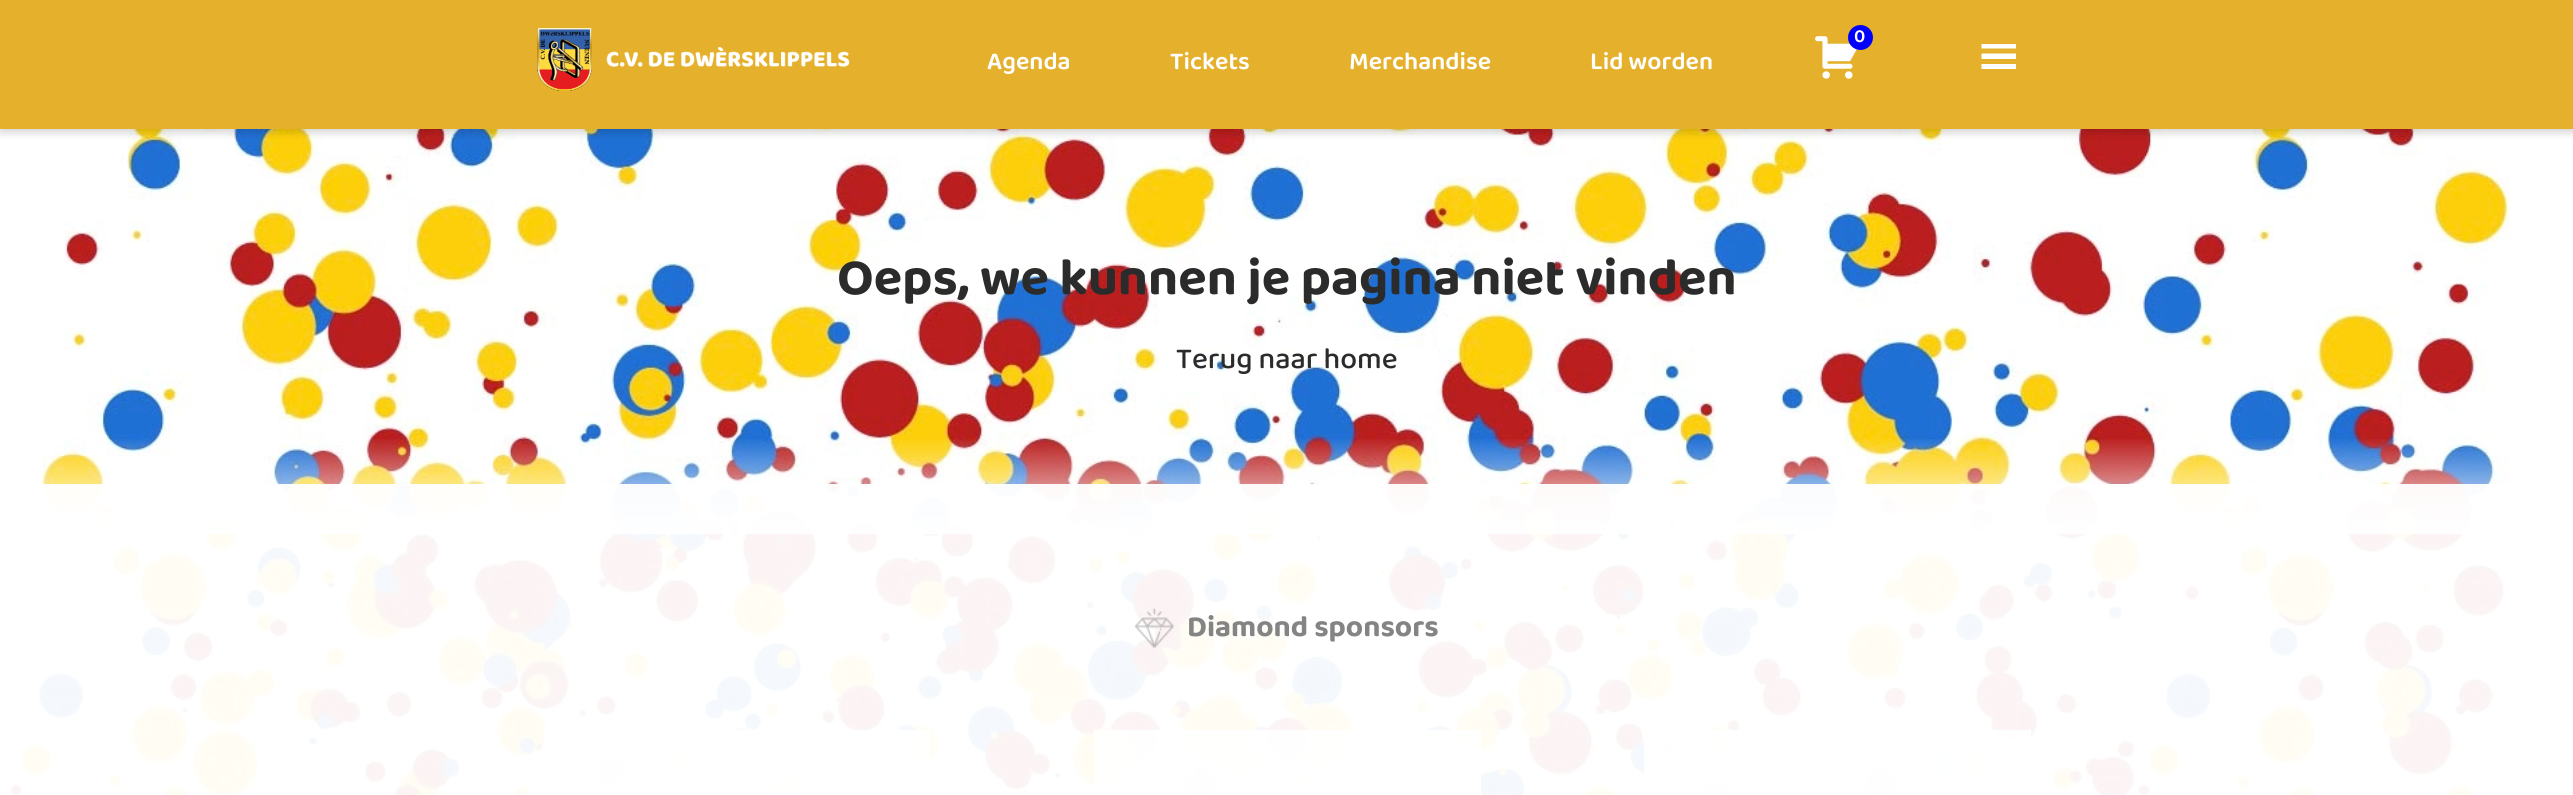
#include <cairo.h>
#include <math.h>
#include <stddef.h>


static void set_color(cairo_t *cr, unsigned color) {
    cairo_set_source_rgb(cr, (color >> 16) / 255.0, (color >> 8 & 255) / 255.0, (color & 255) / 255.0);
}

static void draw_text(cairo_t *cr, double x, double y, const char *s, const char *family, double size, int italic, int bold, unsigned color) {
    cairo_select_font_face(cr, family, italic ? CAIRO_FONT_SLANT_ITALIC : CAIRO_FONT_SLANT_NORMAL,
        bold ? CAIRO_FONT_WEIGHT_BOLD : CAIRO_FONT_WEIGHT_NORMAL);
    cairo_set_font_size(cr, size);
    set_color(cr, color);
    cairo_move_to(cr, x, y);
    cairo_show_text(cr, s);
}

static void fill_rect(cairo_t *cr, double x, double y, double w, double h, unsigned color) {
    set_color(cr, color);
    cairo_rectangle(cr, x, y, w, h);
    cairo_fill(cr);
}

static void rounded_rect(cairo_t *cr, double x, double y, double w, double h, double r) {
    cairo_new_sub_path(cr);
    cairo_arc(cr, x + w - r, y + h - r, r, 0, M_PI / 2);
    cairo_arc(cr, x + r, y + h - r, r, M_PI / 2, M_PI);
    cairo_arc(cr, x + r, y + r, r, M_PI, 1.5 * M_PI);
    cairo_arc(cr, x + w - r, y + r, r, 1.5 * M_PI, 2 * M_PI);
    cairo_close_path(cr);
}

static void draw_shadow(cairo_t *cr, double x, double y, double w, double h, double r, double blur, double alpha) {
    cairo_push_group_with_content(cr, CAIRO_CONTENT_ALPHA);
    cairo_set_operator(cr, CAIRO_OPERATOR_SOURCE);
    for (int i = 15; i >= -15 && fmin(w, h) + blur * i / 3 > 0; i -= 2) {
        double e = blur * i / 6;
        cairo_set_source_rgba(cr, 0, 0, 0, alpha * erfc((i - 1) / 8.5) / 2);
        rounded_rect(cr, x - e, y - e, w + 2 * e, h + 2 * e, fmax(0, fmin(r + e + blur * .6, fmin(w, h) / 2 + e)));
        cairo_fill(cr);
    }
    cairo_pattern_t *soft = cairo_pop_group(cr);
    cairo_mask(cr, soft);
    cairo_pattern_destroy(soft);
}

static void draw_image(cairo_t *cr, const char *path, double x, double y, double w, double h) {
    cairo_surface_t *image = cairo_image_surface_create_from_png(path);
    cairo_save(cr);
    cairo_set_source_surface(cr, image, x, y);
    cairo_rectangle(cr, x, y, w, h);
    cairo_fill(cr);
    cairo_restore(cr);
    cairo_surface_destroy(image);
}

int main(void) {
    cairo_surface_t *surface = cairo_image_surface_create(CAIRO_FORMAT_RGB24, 2573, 795);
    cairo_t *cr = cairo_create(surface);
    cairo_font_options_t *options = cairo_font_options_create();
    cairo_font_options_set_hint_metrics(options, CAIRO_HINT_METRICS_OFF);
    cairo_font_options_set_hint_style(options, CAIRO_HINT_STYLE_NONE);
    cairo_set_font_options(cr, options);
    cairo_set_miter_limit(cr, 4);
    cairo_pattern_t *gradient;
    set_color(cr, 0xFFFFFF);
    cairo_paint(cr);
    draw_image(cr, "assets/img1.png", 0, 129, 2510, 666);
    set_color(cr, 0x000000);
    draw_shadow(cr, 0, 4, 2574, 129, 0, 4, 0.16);
    fill_rect(cr, 0, 0, 2573, 129, 0xE5B12C);
    draw_image(cr, "assets/img2.png", 537, 28, 313, 63);
    draw_image(cr, "assets/img3.png", 1815, 36, 42, 43);
    set_color(cr, 0x0000FF);
    cairo_arc(cr, 1860.5, 37.5, 12.5, 0, 2 * M_PI);
    cairo_fill(cr);
    draw_text(cr, 1854, 42, "0", "Baloo 2 SemiBold", 19, 0, 0, 0xFFFFFF);
    draw_text(cr, 987, 69, "Agenda", "Baloo 2 SemiBold", 25, 0, 0, 0xFFFFFF);
    draw_text(cr, 1170, 69, "Tickets", "Baloo 2 SemiBold", 25, 0, 0, 0xFFFFFF);
    draw_text(cr, 1349, 69, "Merchandise", "Baloo 2 SemiBold", 25, 0, 0, 0xFFFFFF);
    draw_text(cr, 1590, 69, "Lid worden", "Baloo 2 SemiBold", 25, 0, 0, 0xFFFFFF);
    cairo_new_path(cr);
    cairo_move_to(cr, 1981.5, 69);
    cairo_line_to(cr, 2016, 69);
    cairo_line_to(cr, 2016, 64);
    cairo_line_to(cr, 1981.5, 64);
    cairo_close_path(cr);
    cairo_move_to(cr, 1981.5, 44);
    cairo_line_to(cr, 1981.5, 48.5);
    cairo_line_to(cr, 2016, 48.5);
    cairo_line_to(cr, 2016, 44);
    cairo_close_path(cr);
    cairo_move_to(cr, 1981.5, 59);
    cairo_line_to(cr, 2016, 59);
    cairo_line_to(cr, 2016, 53.5);
    cairo_line_to(cr, 1981.5, 53.5);
    cairo_close_path(cr);
    cairo_fill(cr);
    draw_text(cr, 837, 294, "Oeps, we kunnen je pagina niet vinden", "Baloo 2", 52.5, 0, 1, 0x2B2B2B);
    draw_text(cr, 1176, 368, "Terug naar home", "Baloo 2 Medium", 30, 0, 0, 0x2B2B2B);
    cairo_set_source_rgba(cr, 1, 1, 1, 0.95);
    cairo_rectangle(cr, 0, 484, 2510, 311);
    cairo_fill(cr);
    gradient = cairo_pattern_create_linear(1287, 437, 1287, 534);
    cairo_pattern_add_color_stop_rgba(gradient, 0, 1, 1, 1, 0);
    cairo_pattern_add_color_stop_rgba(gradient, 1, 1, 1, 1, 0.95);
    cairo_set_source(cr, gradient);
    cairo_pattern_destroy(gradient);
    cairo_rectangle(cr, 41, 439, 2458, 95);
    cairo_fill(cr);
    draw_image(cr, "assets/img4.png", 1135, 608, 39, 41);
    draw_text(cr, 1187, 636, "Diamond sponsors", "Baloo 2", 30, 0, 1, 0x848484);
    cairo_set_source_rgba(cr, 1, 1, 1, 0.95);
    cairo_rectangle(cr, 544, 730, 387, 65);
    cairo_fill(cr);
    cairo_rectangle(cr, 1094, 730, 387, 65);
    cairo_fill(cr);
    cairo_rectangle(cr, 1644, 730, 387, 65);
    cairo_fill(cr);
    cairo_surface_write_to_png(surface, "output.png");
    cairo_font_options_destroy(options);
    cairo_destroy(cr);
    cairo_surface_destroy(surface);
    return 0;
}
